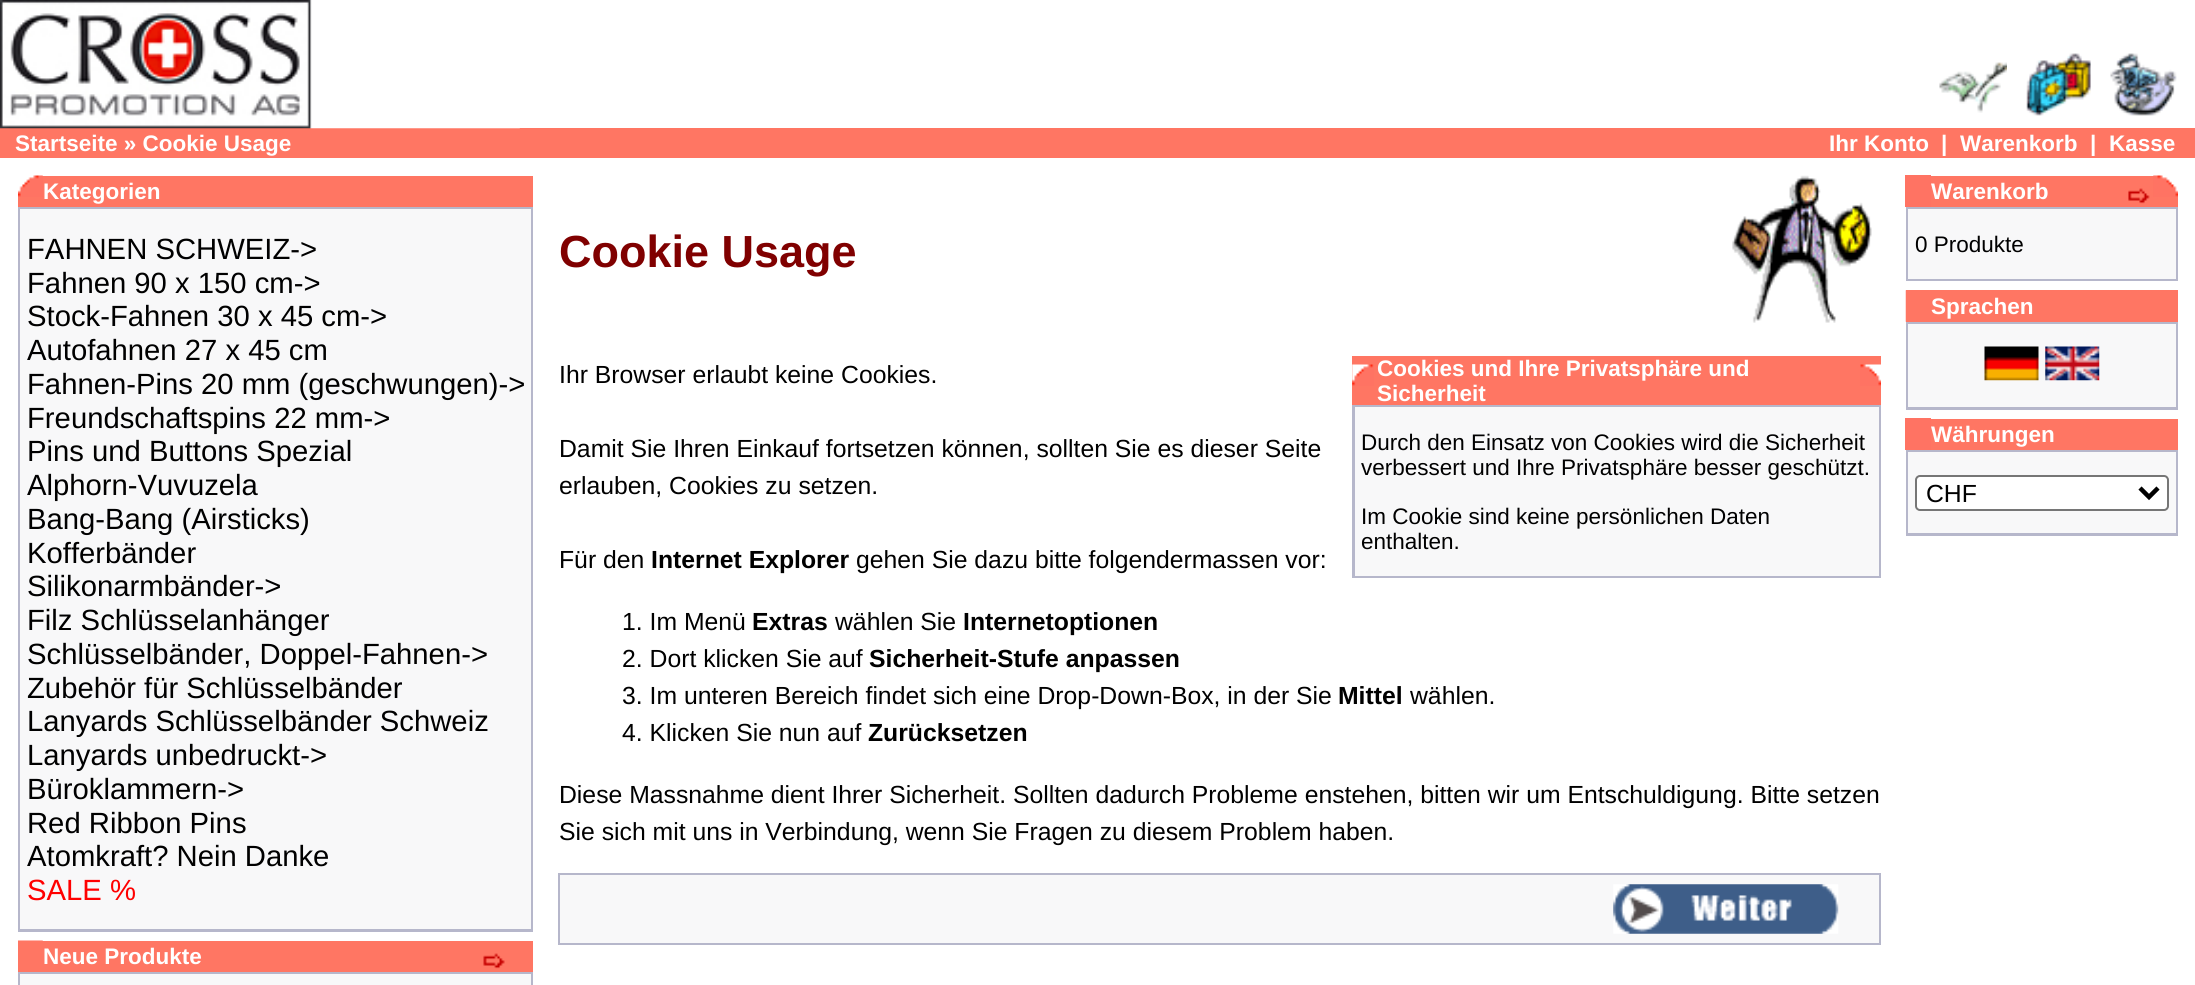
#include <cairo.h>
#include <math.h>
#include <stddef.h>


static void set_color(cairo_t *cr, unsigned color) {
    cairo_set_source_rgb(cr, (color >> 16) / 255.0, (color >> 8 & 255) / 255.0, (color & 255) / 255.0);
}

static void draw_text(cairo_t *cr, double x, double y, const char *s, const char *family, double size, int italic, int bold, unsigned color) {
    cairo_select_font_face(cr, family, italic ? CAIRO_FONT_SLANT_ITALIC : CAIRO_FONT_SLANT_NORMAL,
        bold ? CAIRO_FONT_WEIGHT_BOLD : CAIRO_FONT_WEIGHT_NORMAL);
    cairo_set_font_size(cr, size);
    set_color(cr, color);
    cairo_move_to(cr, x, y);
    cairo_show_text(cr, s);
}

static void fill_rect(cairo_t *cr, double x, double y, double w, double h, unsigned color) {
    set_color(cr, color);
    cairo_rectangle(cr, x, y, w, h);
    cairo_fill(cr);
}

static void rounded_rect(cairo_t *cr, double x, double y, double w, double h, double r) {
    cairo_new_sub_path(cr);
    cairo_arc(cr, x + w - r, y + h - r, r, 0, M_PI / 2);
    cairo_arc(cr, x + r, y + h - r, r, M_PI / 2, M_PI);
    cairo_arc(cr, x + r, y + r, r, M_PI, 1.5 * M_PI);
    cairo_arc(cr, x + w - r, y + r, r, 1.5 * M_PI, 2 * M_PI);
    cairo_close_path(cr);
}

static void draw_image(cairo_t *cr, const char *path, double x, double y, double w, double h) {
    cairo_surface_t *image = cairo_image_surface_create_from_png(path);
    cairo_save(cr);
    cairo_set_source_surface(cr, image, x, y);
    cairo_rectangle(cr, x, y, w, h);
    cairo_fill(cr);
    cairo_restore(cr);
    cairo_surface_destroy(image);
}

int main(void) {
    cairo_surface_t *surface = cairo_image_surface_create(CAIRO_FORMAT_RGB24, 2195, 985);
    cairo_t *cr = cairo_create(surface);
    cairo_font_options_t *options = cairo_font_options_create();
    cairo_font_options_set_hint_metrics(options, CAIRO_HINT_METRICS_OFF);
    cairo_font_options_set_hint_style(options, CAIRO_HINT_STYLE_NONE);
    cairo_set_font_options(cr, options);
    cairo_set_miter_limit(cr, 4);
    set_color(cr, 0xFFFFFF);
    cairo_paint(cr);
    fill_rect(cr, 0, 128, 2195, 30, 0xFF7663);
    draw_image(cr, "assets/img1.png", 0, 0, 520, 129);
    draw_image(cr, "assets/img2.png", 1939, 62, 68, 51);
    draw_image(cr, "assets/img3.png", 2026, 53, 65, 63);
    draw_image(cr, "assets/img4.png", 2110, 53, 67, 63);
    draw_text(cr, 15, 151, "Startseite » Cookie Usage", "Liberation Sans", 22.5, 0, 1, 0xFFFFFF);
    draw_text(cr, 1829, 151, "Ihr Konto", "Liberation Sans", 22.5, 0, 1, 0xFFFFFF);
    draw_text(cr, 1941, 151, "|", "Liberation Sans", 22.5, 0, 1, 0xFFFFFF);
    draw_text(cr, 1960, 151, "Warenkorb", "Liberation Sans", 22.5, 0, 1, 0xFFFFFF);
    draw_text(cr, 2090, 151, "|", "Liberation Sans", 22.5, 0, 1, 0xFFFFFF);
    draw_text(cr, 2109, 151, "Kasse", "Liberation Sans", 22.5, 0, 1, 0xFFFFFF);
    fill_rect(cr, 18, 176, 515, 31, 0xFF7663);
    draw_image(cr, "assets/img5.png", 18, 175, 25, 22);
    draw_text(cr, 43, 199, "Kategorien", "Liberation Sans", 22.5, 0, 1, 0xFFFFFF);
    fill_rect(cr, 18, 207, 515, 725, 0xB6B7CB);
    fill_rect(cr, 20, 209, 511, 720, 0xF8F8F9);
    draw_text(cr, 27, 259, "FAHNEN SCHWEIZ->", "Liberation Sans", 29.25, 0, 0, 0x000000);
    draw_text(cr, 27, 293, "Fahnen 90 x 150 cm->", "Liberation Sans", 29.25, 0, 0, 0x000000);
    draw_text(cr, 27, 326, "Stock-Fahnen 30 x 45 cm->", "Liberation Sans", 29.25, 0, 0, 0x000000);
    draw_text(cr, 27, 360, "Autofahnen 27 x 45 cm", "Liberation Sans", 29.25, 0, 0, 0x000000);
    draw_text(cr, 27, 394, "Fahnen-Pins 20 mm (geschwungen)->", "Liberation Sans", 29.25, 0, 0, 0x000000);
    draw_text(cr, 27, 428, "Freundschaftspins 22 mm->", "Liberation Sans", 29.25, 0, 0, 0x000000);
    draw_text(cr, 27, 461, "Pins und Buttons Spezial", "Liberation Sans", 29.25, 0, 0, 0x000000);
    draw_text(cr, 27, 495, "Alphorn-Vuvuzela", "Liberation Sans", 29.25, 0, 0, 0x000000);
    draw_text(cr, 27, 529, "Bang-Bang (Airsticks)", "Liberation Sans", 29.25, 0, 0, 0x000000);
    draw_text(cr, 27, 563, "Kofferbänder", "Liberation Sans", 29.25, 0, 0, 0x000000);
    draw_text(cr, 27, 596, "Silikonarmbänder->", "Liberation Sans", 29.25, 0, 0, 0x000000);
    draw_text(cr, 27, 630, "Filz Schlüsselanhänger", "Liberation Sans", 29.25, 0, 0, 0x000000);
    draw_text(cr, 27, 664, "Schlüsselbänder, Doppel-Fahnen->", "Liberation Sans", 29.25, 0, 0, 0x000000);
    draw_text(cr, 27, 698, "Zubehör für Schlüsselbänder", "Liberation Sans", 29.25, 0, 0, 0x000000);
    draw_text(cr, 27, 731, "Lanyards Schlüsselbänder Schweiz", "Liberation Sans", 29.25, 0, 0, 0x000000);
    draw_text(cr, 27, 765, "Lanyards unbedruckt->", "Liberation Sans", 29.25, 0, 0, 0x000000);
    draw_text(cr, 27, 799, "Büroklammern->", "Liberation Sans", 29.25, 0, 0, 0x000000);
    draw_text(cr, 27, 833, "Red Ribbon Pins", "Liberation Sans", 29.25, 0, 0, 0x000000);
    draw_text(cr, 27, 866, "Atomkraft? Nein Danke", "Liberation Sans", 29.25, 0, 0, 0x000000);
    draw_text(cr, 27, 900, "SALE %", "Liberation Sans", 29.25, 0, 0, 0xFF0000);
    fill_rect(cr, 18, 941, 515, 31, 0xFF7663);
    draw_image(cr, "assets/img6.png", 18, 940, 25, 1);
    draw_text(cr, 43, 964, "Neue Produkte", "Liberation Sans", 22.5, 0, 1, 0xFFFFFF);
    draw_image(cr, "assets/img7.png", 483, 953, 22, 16);
    fill_rect(cr, 18, 972, 515, 13, 0xB6B7CB);
    fill_rect(cr, 20, 974, 511, 11, 0xF8F8F9);
    draw_text(cr, 559, 267, "Cookie Usage", "Liberation Sans", 45, 0, 1, 0x800000);
    draw_image(cr, "assets/img8.png", 1732, 175, 140, 148);
    draw_text(cr, 559, 383, "Ihr Browser erlaubt keine Cookies.", "Liberation Sans", 24.75, 0, 0, 0x000000);
    fill_rect(cr, 1352, 356, 529, 49, 0xFF7663);
    draw_image(cr, "assets/img9.png", 1352, 364, 22, 22);
    draw_text(cr, 1377, 376, "Cookies und Ihre Privatsphäre und", "Liberation Sans", 22.5, 0, 1, 0xFFFFFF);
    draw_text(cr, 1377, 401, "Sicherheit", "Liberation Sans", 22.5, 0, 1, 0xFFFFFF);
    draw_image(cr, "assets/img10.png", 1860, 364, 21, 22);
    fill_rect(cr, 1352, 405, 529, 173, 0xB6B7CB);
    fill_rect(cr, 1355, 407, 524, 169, 0xF8F8F9);
    draw_text(cr, 1361, 450, "Durch den Einsatz von Cookies wird die Sicherheit", "Liberation Sans", 22.5, 0, 0, 0x000000);
    draw_text(cr, 1361, 475, "verbessert und Ihre Privatsphäre besser geschützt.", "Liberation Sans", 22.5, 0, 0, 0x000000);
    draw_text(cr, 1361, 524, "Im Cookie sind keine persönlichen Daten", "Liberation Sans", 22.5, 0, 0, 0x000000);
    draw_text(cr, 1361, 549, "enthalten.", "Liberation Sans", 22.5, 0, 0, 0x000000);
    draw_text(cr, 559, 457, "Damit Sie Ihren Einkauf fortsetzen können, sollten Sie es dieser Seite", "Liberation Sans", 24.75, 0, 0, 0x000000);
    draw_text(cr, 559, 494, "erlauben, Cookies zu setzen.", "Liberation Sans", 24.75, 0, 0, 0x000000);
    draw_text(cr, 559, 568, "Für den", "Liberation Sans", 24.75, 0, 0, 0x000000);
    draw_text(cr, 651, 568, "Internet Explorer", "Liberation Sans", 24.75, 0, 1, 0x000000);
    draw_text(cr, 856, 568, "gehen Sie dazu bitte folgendermassen vor:", "Liberation Sans", 24.75, 0, 0, 0x000000);
    draw_text(cr, 622, 630, "1. Im Menü", "Liberation Sans", 24.75, 0, 0, 0x000000);
    draw_text(cr, 752, 630, "Extras", "Liberation Sans", 24.75, 0, 1, 0x000000);
    draw_text(cr, 835, 630, "wählen Sie", "Liberation Sans", 24.75, 0, 0, 0x000000);
    draw_text(cr, 963, 630, "Internetoptionen", "Liberation Sans", 24.75, 0, 1, 0x000000);
    draw_text(cr, 622, 667, "2. Dort klicken Sie auf", "Liberation Sans", 24.75, 0, 0, 0x000000);
    draw_text(cr, 869, 667, "Sicherheit-Stufe anpassen", "Liberation Sans", 24.75, 0, 1, 0x000000);
    draw_text(cr, 622, 704, "3. Im unteren Bereich findet sich eine Drop-Down-Box, in der Sie", "Liberation Sans", 24.75, 0, 0, 0x000000);
    draw_text(cr, 1338, 704, "Mittel", "Liberation Sans", 24.75, 0, 1, 0x000000);
    draw_text(cr, 1410, 704, "wählen.", "Liberation Sans", 24.75, 0, 0, 0x000000);
    draw_text(cr, 622, 741, "4. Klicken Sie nun auf", "Liberation Sans", 24.75, 0, 0, 0x000000);
    draw_text(cr, 868, 741, "Zurücksetzen", "Liberation Sans", 24.75, 0, 1, 0x000000);
    draw_text(cr, 559, 803, "Diese Massnahme dient Ihrer Sicherheit. Sollten dadurch Probleme enstehen, bitten wir um Entschuldigung. Bitte setzen", "Liberation Sans", 24.75, 0, 0, 0x000000);
    draw_text(cr, 559, 840, "Sie sich mit uns in Verbindung, wenn Sie Fragen zu diesem Problem haben.", "Liberation Sans", 24.75, 0, 0, 0x000000);
    fill_rect(cr, 558, 873, 1323, 72, 0xB6B7CB);
    fill_rect(cr, 560, 875, 1319, 68, 0xF8F8F9);
    draw_image(cr, "assets/img11.png", 1613, 884, 226, 50);
    fill_rect(cr, 1905, 175, 26, 32, 0xFF7363);
    fill_rect(cr, 1931, 176, 247, 31, 0xFF7663);
    draw_text(cr, 1931, 199, "Warenkorb", "Liberation Sans", 22.5, 0, 1, 0xFFFFFF);
    draw_image(cr, "assets/img12.png", 2128, 188, 22, 16);
    draw_image(cr, "assets/img13.png", 2153, 175, 25, 22);
    fill_rect(cr, 1906, 207, 272, 74, 0xB6B7CB);
    fill_rect(cr, 1908, 209, 268, 70, 0xF8F8F9);
    draw_text(cr, 1915, 252, "0 Produkte", "Liberation Sans", 22.5, 0, 0, 0x000000);
    fill_rect(cr, 1906, 290, 272, 32, 0xFF7663);
    draw_image(cr, "assets/img14.png", 1905, 290, 1, 32);
    draw_text(cr, 1931, 314, "Sprachen", "Liberation Sans", 22.5, 0, 1, 0xFFFFFF);
    fill_rect(cr, 1906, 322, 272, 88, 0xB6B7CB);
    fill_rect(cr, 1908, 324, 268, 83, 0xF8F8F9);
    draw_image(cr, "assets/img15.png", 1984, 346, 55, 35);
    draw_image(cr, "assets/img16.png", 2045, 346, 55, 35);
    fill_rect(cr, 1905, 418, 26, 32, 0xFF7363);
    fill_rect(cr, 1931, 419, 247, 31, 0xFF7663);
    draw_text(cr, 1931, 442, "Währungen", "Liberation Sans", 22.5, 0, 1, 0xFFFFFF);
    fill_rect(cr, 1906, 450, 272, 86, 0xB6B7CB);
    fill_rect(cr, 1908, 452, 268, 81, 0xF8F8F9);
    set_color(cr, 0xFFFFFF);
    rounded_rect(cr, 1916, 476, 252, 34, 4);
    cairo_fill_preserve(cr);
    set_color(cr, 0x767676);
    cairo_stroke(cr);
    cairo_new_path(cr);
    cairo_move_to(cr, 2140, 488);
    cairo_line_to(cr, 2149, 497);
    cairo_line_to(cr, 2158, 488);
    set_color(cr, 0x000000);
    cairo_set_line_width(cr, 4.5);
    cairo_stroke(cr);
    draw_text(cr, 1926, 502, "CHF", "Liberation Sans", 24.75, 0, 0, 0x000000);
    cairo_surface_write_to_png(surface, "output.png");
    cairo_font_options_destroy(options);
    cairo_destroy(cr);
    cairo_surface_destroy(surface);
    return 0;
}
